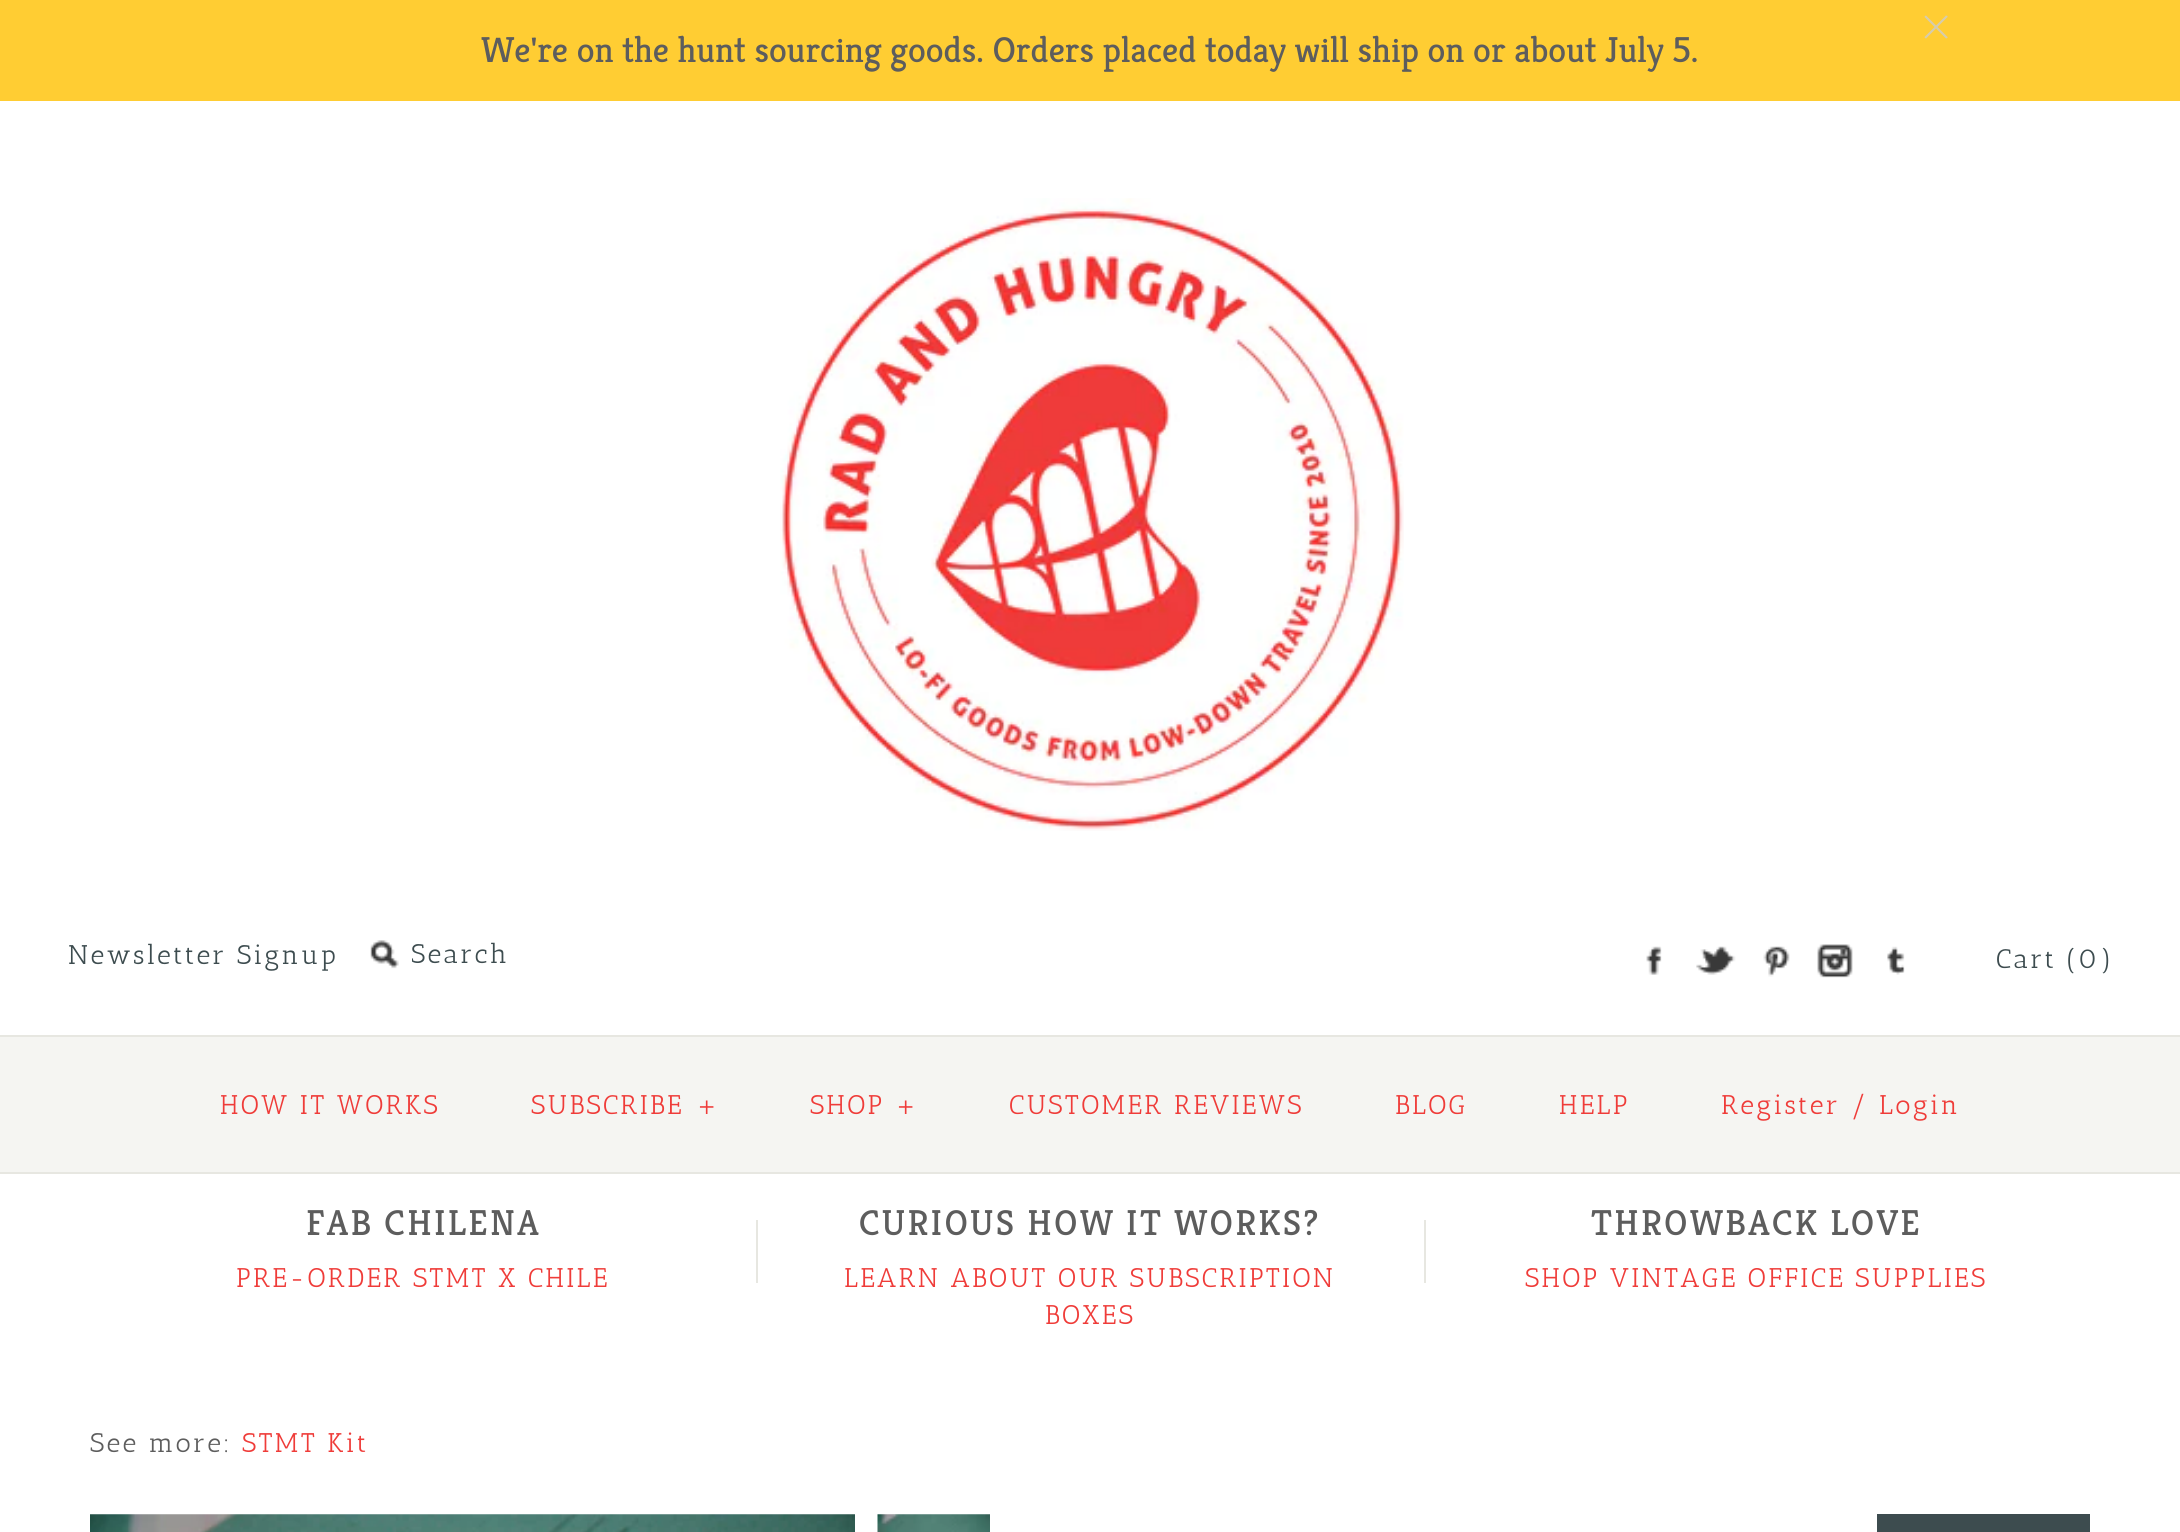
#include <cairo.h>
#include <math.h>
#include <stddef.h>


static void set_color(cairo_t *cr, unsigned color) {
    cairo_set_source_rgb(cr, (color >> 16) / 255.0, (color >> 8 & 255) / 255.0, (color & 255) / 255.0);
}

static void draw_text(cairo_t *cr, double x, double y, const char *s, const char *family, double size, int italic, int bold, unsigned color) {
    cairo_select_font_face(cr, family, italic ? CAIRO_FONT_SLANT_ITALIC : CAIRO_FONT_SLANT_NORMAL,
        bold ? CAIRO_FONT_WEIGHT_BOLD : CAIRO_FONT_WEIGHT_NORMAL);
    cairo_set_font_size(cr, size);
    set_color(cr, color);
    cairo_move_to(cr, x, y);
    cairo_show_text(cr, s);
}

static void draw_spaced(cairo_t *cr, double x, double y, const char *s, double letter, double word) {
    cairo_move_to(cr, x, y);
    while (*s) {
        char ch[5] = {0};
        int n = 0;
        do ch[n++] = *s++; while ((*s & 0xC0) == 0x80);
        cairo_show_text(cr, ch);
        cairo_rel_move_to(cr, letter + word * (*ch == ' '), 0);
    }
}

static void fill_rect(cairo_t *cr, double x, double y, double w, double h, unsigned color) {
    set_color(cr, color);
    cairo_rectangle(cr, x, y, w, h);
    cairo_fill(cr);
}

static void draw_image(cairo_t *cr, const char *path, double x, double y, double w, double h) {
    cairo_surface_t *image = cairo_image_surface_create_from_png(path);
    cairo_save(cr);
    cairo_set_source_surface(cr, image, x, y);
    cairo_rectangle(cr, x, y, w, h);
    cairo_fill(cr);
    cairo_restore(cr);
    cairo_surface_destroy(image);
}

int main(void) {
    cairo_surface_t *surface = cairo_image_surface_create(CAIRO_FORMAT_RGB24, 2180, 1532);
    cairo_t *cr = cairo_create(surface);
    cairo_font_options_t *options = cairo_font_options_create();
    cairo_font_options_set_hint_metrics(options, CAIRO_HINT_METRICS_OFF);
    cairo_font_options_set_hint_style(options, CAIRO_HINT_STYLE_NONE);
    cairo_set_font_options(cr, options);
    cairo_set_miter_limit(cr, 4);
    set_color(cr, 0xFFFFFF);
    cairo_paint(cr);
    fill_rect(cr, 0, 0, 2180, 101, 0xFFCD33);
    set_color(cr, 0xD6CCAD);
    cairo_new_path(cr);
    cairo_move_to(cr, 1925, 16);
    cairo_line_to(cr, 1926, 15.5);
    cairo_line_to(cr, 1947.5, 37);
    cairo_line_to(cr, 1947.5, 38);
    cairo_line_to(cr, 1946, 38.5);
    cairo_line_to(cr, 1924.5, 17);
    cairo_close_path(cr);
    cairo_fill(cr);
    cairo_new_path(cr);
    cairo_move_to(cr, 1947.5, 16);
    cairo_line_to(cr, 1947.5, 17);
    cairo_line_to(cr, 1926, 38.5);
    cairo_line_to(cr, 1925, 38);
    cairo_line_to(cr, 1924.5, 37);
    cairo_line_to(cr, 1946, 15.5);
    cairo_close_path(cr);
    cairo_fill(cr);
    draw_text(cr, 481, 62, "We're on the hunt sourcing goods. Orders placed today will ship on or about July 5.", "Kreon Light", 36, 0, 0, 0x5D5D5D);
    draw_image(cr, "assets/img1.png", 780, 198, 624, 633);
    cairo_select_font_face(cr, "Antic Slab", CAIRO_FONT_SLANT_NORMAL, CAIRO_FONT_WEIGHT_NORMAL);
    cairo_set_font_size(cr, 27);
    set_color(cr, 0x3D4C4F);
    draw_spaced(cr, 68, 964, "Newsletter Signup", 2.25, 0);
    draw_image(cr, "assets/img2.png", 370, 940, 29, 29);
    cairo_save(cr);
    cairo_rectangle(cr, 412, 938, 472, 32);
    cairo_clip(cr);
    draw_spaced(cr, 411, 963, "Search", 2.25, 0);
    cairo_restore(cr);
    draw_image(cr, "assets/img3.png", 1646, 946, 16, 29);
    draw_image(cr, "assets/img4.png", 1696, 946, 40, 29);
    draw_image(cr, "assets/img5.png", 1763, 946, 27, 31);
    draw_image(cr, "assets/img6.png", 1817, 944, 36, 34);
    draw_image(cr, "assets/img7.png", 1887, 946, 18, 29);
    draw_spaced(cr, 1996, 968, "Cart (0)", 2.25, 0);
    fill_rect(cr, 0, 1172, 2180, 2, 0xE7E7E1);
    fill_rect(cr, 0, 1037, 2180, 135, 0xF5F5F2);
    fill_rect(cr, 0, 1035, 2180, 2, 0xE7E7E1);
    set_color(cr, 0xEF3C39);
    draw_spaced(cr, 220, 1114, "HOW IT WORKS", 2.25, 0);
    draw_spaced(cr, 531, 1114, "SUBSCRIBE", 2.25, 0);
    draw_spaced(cr, 696, 1114, "+", 2.25, 0);
    draw_spaced(cr, 810, 1114, "SHOP", 2.25, 0);
    draw_spaced(cr, 895, 1114, "+", 2.25, 0);
    draw_spaced(cr, 1009, 1114, "CUSTOMER REVIEWS", 2.25, 0);
    draw_spaced(cr, 1395, 1114, "BLOG", 2.25, 0);
    draw_spaced(cr, 1559, 1114, "HELP", 2.25, 0);
    draw_spaced(cr, 1721, 1114, "Register / Login", 2.25, 0);
    cairo_select_font_face(cr, "Kreon Light", CAIRO_FONT_SLANT_NORMAL, CAIRO_FONT_WEIGHT_NORMAL);
    cairo_set_font_size(cr, 36);
    set_color(cr, 0x5D5D5D);
    draw_spaced(cr, 306, 1235, "FAB CHILENA", 2.25, 0);
    cairo_select_font_face(cr, "Antic Slab", CAIRO_FONT_SLANT_NORMAL, CAIRO_FONT_WEIGHT_NORMAL);
    cairo_set_font_size(cr, 27);
    set_color(cr, 0xEF3C39);
    draw_spaced(cr, 236, 1287, "PRE-ORDER STMT X CHILE", 2.25, 0);
    fill_rect(cr, 756, 1220, 2, 63, 0xE7E7E1);
    cairo_select_font_face(cr, "Kreon Light", CAIRO_FONT_SLANT_NORMAL, CAIRO_FONT_WEIGHT_NORMAL);
    cairo_set_font_size(cr, 36);
    set_color(cr, 0x5D5D5D);
    draw_spaced(cr, 859, 1235, "CURIOUS HOW IT WORKS?", 2.25, 0);
    cairo_select_font_face(cr, "Antic Slab", CAIRO_FONT_SLANT_NORMAL, CAIRO_FONT_WEIGHT_NORMAL);
    cairo_set_font_size(cr, 27);
    set_color(cr, 0xEF3C39);
    draw_spaced(cr, 844, 1287, "LEARN ABOUT OUR SUBSCRIPTION", 2.25, 0);
    draw_spaced(cr, 1045, 1324, "BOXES", 2.25, 0);
    fill_rect(cr, 1424, 1220, 2, 63, 0xE7E7E1);
    cairo_select_font_face(cr, "Kreon Light", CAIRO_FONT_SLANT_NORMAL, CAIRO_FONT_WEIGHT_NORMAL);
    cairo_set_font_size(cr, 36);
    set_color(cr, 0x5D5D5D);
    draw_spaced(cr, 1591, 1235, "THROWBACK LOVE", 2.25, 0);
    cairo_select_font_face(cr, "Antic Slab", CAIRO_FONT_SLANT_NORMAL, CAIRO_FONT_WEIGHT_NORMAL);
    cairo_set_font_size(cr, 27);
    set_color(cr, 0xEF3C39);
    draw_spaced(cr, 1525, 1287, "SHOP VINTAGE OFFICE SUPPLIES", 2.25, 0);
    set_color(cr, 0x5D5D5D);
    draw_spaced(cr, 90, 1452, "See more:", 2.25, 0);
    set_color(cr, 0xEF3C39);
    draw_spaced(cr, 242, 1452, "STMT Kit", 2.25, 0);
    draw_image(cr, "assets/img8.png", 90, 1514, 765, 18);
    draw_image(cr, "assets/img9.png", 877, 1514, 113, 18);
    fill_rect(cr, 1877, 1514, 213, 18, 0x3D4C4F);
    cairo_surface_write_to_png(surface, "output.png");
    cairo_font_options_destroy(options);
    cairo_destroy(cr);
    cairo_surface_destroy(surface);
    return 0;
}
